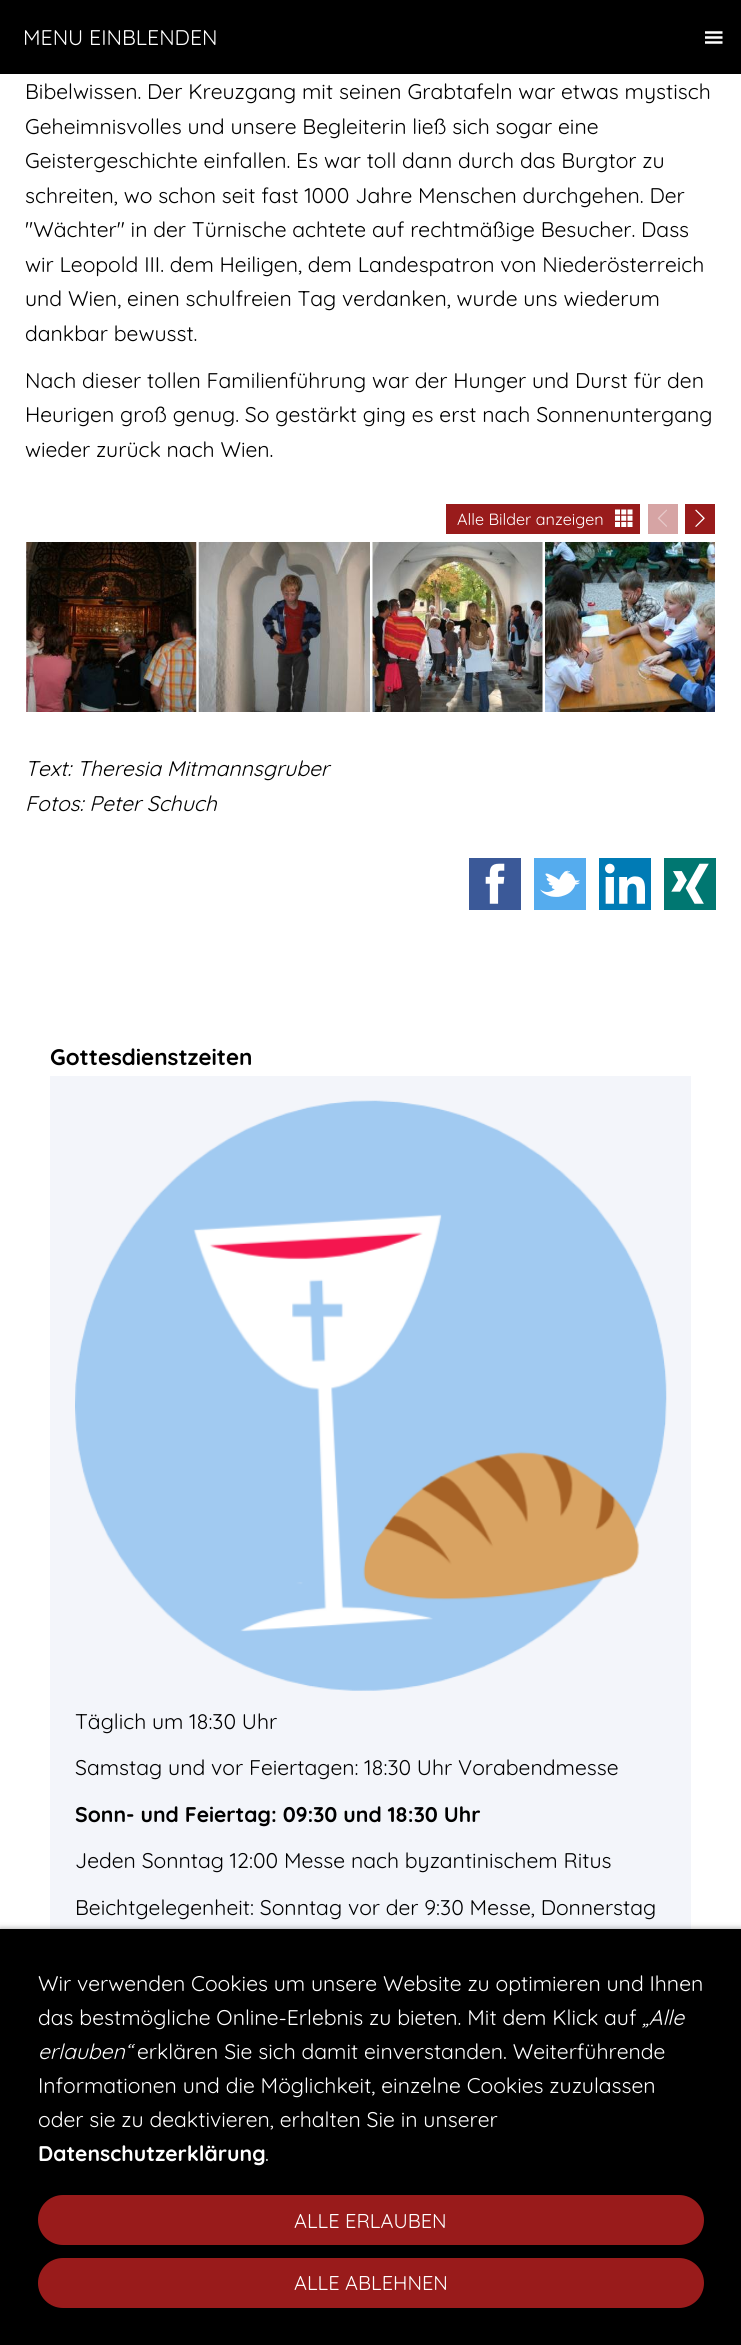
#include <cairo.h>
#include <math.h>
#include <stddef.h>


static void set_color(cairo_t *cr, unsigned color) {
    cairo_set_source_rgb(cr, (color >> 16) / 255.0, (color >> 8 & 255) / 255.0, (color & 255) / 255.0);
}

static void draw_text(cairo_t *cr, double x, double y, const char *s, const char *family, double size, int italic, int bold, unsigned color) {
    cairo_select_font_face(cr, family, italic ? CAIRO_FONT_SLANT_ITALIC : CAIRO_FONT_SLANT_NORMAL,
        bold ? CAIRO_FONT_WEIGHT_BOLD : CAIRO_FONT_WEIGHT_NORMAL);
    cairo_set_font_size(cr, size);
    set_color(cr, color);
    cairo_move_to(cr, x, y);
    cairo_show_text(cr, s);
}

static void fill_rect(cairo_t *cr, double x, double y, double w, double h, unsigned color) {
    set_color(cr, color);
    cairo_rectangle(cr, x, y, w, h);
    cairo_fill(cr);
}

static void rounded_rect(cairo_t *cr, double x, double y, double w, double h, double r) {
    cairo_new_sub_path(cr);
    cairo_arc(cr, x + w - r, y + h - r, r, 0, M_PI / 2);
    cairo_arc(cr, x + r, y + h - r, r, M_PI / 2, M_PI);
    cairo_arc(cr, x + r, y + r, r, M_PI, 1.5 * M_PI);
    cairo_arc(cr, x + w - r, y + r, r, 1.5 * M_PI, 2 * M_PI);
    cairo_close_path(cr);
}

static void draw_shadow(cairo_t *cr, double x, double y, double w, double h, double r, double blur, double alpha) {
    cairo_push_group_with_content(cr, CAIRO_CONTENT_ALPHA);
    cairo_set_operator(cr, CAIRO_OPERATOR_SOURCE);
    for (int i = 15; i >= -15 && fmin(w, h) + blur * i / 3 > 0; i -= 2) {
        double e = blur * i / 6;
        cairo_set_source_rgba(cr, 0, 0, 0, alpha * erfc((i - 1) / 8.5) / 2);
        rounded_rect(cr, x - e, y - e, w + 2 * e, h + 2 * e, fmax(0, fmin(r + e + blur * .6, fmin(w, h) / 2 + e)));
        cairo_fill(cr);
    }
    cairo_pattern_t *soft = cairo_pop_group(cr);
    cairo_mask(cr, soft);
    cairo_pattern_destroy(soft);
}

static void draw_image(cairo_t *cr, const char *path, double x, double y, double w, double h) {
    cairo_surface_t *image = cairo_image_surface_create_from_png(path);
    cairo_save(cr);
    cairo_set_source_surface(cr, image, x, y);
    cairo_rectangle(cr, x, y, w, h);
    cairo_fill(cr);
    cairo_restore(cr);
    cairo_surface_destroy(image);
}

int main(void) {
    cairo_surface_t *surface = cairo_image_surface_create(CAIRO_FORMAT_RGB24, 741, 2345);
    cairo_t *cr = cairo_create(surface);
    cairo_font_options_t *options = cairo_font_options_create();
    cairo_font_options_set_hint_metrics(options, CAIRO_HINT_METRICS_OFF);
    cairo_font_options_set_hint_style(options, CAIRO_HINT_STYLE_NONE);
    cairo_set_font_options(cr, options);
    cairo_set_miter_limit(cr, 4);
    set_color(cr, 0xFFFFFF);
    cairo_paint(cr);
    fill_rect(cr, 0, 0, 741, 74, 0x000000);
    draw_image(cr, "assets/img1.png", 705, 31, 18, 13);
    draw_text(cr, 23, 45, "MENU EINBLENDEN", "Quicksand Light", 21.25, 0, 0, 0xFFFFFF);
    draw_text(cr, 25, 99, "Bibelwissen. Der Kreuzgang mit seinen Grabtafeln war etwas mystisch", "Quicksand Light", 21.25, 0, 0, 0x000000);
    draw_text(cr, 25, 134, "Geheimnisvolles und unsere Begleiterin ließ sich sogar eine", "Quicksand Light", 21.25, 0, 0, 0x000000);
    draw_text(cr, 25, 168, "Geistergeschichte einfallen. Es war toll dann durch das Burgtor zu", "Quicksand Light", 21.25, 0, 0, 0x000000);
    draw_text(cr, 25, 203, "schreiten, wo schon seit fast 1000 Jahre Menschen durchgehen. Der", "Quicksand Light", 21.25, 0, 0, 0x000000);
    draw_text(cr, 25, 237, "\"Wächter\" in der Türnische achtete auf rechtmäßige Besucher. Dass", "Quicksand Light", 21.25, 0, 0, 0x000000);
    draw_text(cr, 25, 272, "wir Leopold III. dem Heiligen, dem Landespatron von Niederösterreich", "Quicksand Light", 21.25, 0, 0, 0x000000);
    draw_text(cr, 25, 306, "und Wien, einen schulfreien Tag verdanken, wurde uns wiederum", "Quicksand Light", 21.25, 0, 0, 0x000000);
    draw_text(cr, 25, 341, "dankbar bewusst.", "Quicksand Light", 21.25, 0, 0, 0x000000);
    draw_text(cr, 25, 388, "Nach dieser tollen Familienführung war der Hunger und Durst für den", "Quicksand Light", 21.25, 0, 0, 0x000000);
    draw_text(cr, 25, 422, "Heurigen groß genug. So gestärkt ging es erst nach Sonnenuntergang", "Quicksand Light", 21.25, 0, 0, 0x000000);
    draw_text(cr, 25, 457, "wieder zurück nach Wien.", "Quicksand Light", 21.25, 0, 0, 0x000000);
    fill_rect(cr, 446, 504, 194, 30, 0x991B1B);
    draw_image(cr, "assets/img2.png", 615, 509, 18, 18);
    draw_text(cr, 457, 525, "Alle Bilder anzeigen", "Quicksand Light", 16.25, 0, 0, 0xFFFFFF);
    fill_rect(cr, 648, 504, 30, 30, 0xD6A4A4);
    draw_image(cr, "assets/img3.png", 657, 509, 10, 18);
    fill_rect(cr, 685, 504, 30, 30, 0x991B1B);
    draw_image(cr, "assets/img4.png", 695, 509, 10, 18);
    draw_image(cr, "assets/img5.png", 26, 542, 171, 170);
    draw_image(cr, "assets/img6.png", 198, 542, 172, 170);
    draw_image(cr, "assets/img7.png", 372, 542, 171, 170);
    draw_image(cr, "assets/img8.png", 545, 542, 170, 170);
    draw_text(cr, 25, 776, "Text: Theresia Mitmannsgruber", "Quicksand Light", 21.25, 1, 0, 0x000000);
    draw_text(cr, 25, 811, "Fotos: Peter Schuch", "Quicksand Light", 21.25, 1, 0, 0x000000);
    fill_rect(cr, 469, 858, 52, 52, 0x3B5998);
    draw_image(cr, "assets/img9.png", 485, 863, 20, 41);
    fill_rect(cr, 534, 858, 52, 52, 0x55ACEE);
    draw_image(cr, "assets/img10.png", 540, 870, 40, 27);
    fill_rect(cr, 599, 858, 52, 52, 0x007BB5);
    draw_image(cr, "assets/img11.png", 605, 863, 40, 41);
    fill_rect(cr, 664, 858, 52, 52, 0x007771);
    draw_image(cr, "assets/img12.png", 671, 863, 38, 41);
    draw_text(cr, 50, 1065, "Gottesdienstzeiten", "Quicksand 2 Light", 22.5, 0, 0, 0x000000);
    fill_rect(cr, 50, 1076, 641, 853, 0xF3F5FA);
    draw_image(cr, "assets/img13.png", 75, 1100, 592, 591);
    draw_text(cr, 75, 1729, "Täglich um 18:30 Uhr", "Quicksand Light", 21.25, 0, 0, 0x000000);
    draw_text(cr, 75, 1775, "Samstag und vor Feiertagen: 18:30 Uhr Vorabendmesse", "Quicksand Light", 21.25, 0, 0, 0x000000);
    draw_text(cr, 75, 1822, "Sonn- und Feiertag: 09:30 und 18:30 Uhr", "Quicksand 2 Light", 21.25, 0, 0, 0x000000);
    draw_text(cr, 75, 1868, "Jeden Sonntag 12:00 Messe nach byzantinischem Ritus", "Quicksand Light", 21.25, 0, 0, 0x000000);
    draw_text(cr, 75, 1915, "Beichtgelegenheit: Sonntag vor der 9:30 Messe, Donnerstag", "Quicksand Light", 21.25, 0, 0, 0x000000);
    set_color(cr, 0x000000);
    draw_shadow(cr, 0, 1929, 741, 416, 0, 3, 0.4);
    fill_rect(cr, 0, 1929, 741, 416, 0x000000);
    draw_text(cr, 38, 1991, "Wir verwenden Cookies um unsere Website zu optimieren und Ihnen", "Quicksand Light", 21.25, 0, 0, 0xFFFFFF);
    draw_text(cr, 38, 2025, "das bestmögliche Online-Erlebnis zu bieten. Mit dem Klick auf", "Quicksand Light", 21.25, 0, 0, 0xFFFFFF);
    draw_text(cr, 642, 2025, "„Alle", "Quicksand Light", 21.25, 1, 0, 0xFFFFFF);
    draw_text(cr, 38, 2059, "erlauben“", "Quicksand Light", 21.25, 1, 0, 0xFFFFFF);
    draw_text(cr, 137, 2059, "erklären Sie sich damit einverstanden. Weiterführende", "Quicksand Light", 21.25, 0, 0, 0xFFFFFF);
    draw_text(cr, 38, 2093, "Informationen und die Möglichkeit, einzelne Cookies zuzulassen", "Quicksand Light", 21.25, 0, 0, 0xFFFFFF);
    draw_text(cr, 38, 2127, "oder sie zu deaktivieren, erhalten Sie in unserer", "Quicksand Light", 21.25, 0, 0, 0xFFFFFF);
    draw_text(cr, 38, 2161, "Datenschutzerklärung", "Quicksand 2 Light", 21.25, 0, 0, 0xFFFFFF);
    draw_text(cr, 265, 2161, ".", "Quicksand Light", 21.25, 0, 0, 0xFFFFFF);
    set_color(cr, 0x991B1B);
    rounded_rect(cr, 38, 2195, 666, 50, 25);
    cairo_fill(cr);
    draw_text(cr, 294, 2228, "ALLE ERLAUBEN", "Quicksand Light", 20, 0, 0, 0xFFFFFF);
    set_color(cr, 0x991B1B);
    rounded_rect(cr, 38, 2258, 666, 50, 25);
    cairo_fill(cr);
    draw_text(cr, 294, 2290, "ALLE ABLEHNEN", "Quicksand Light", 20, 0, 0, 0xFFFFFF);
    cairo_surface_write_to_png(surface, "output.png");
    cairo_font_options_destroy(options);
    cairo_destroy(cr);
    cairo_surface_destroy(surface);
    return 0;
}
